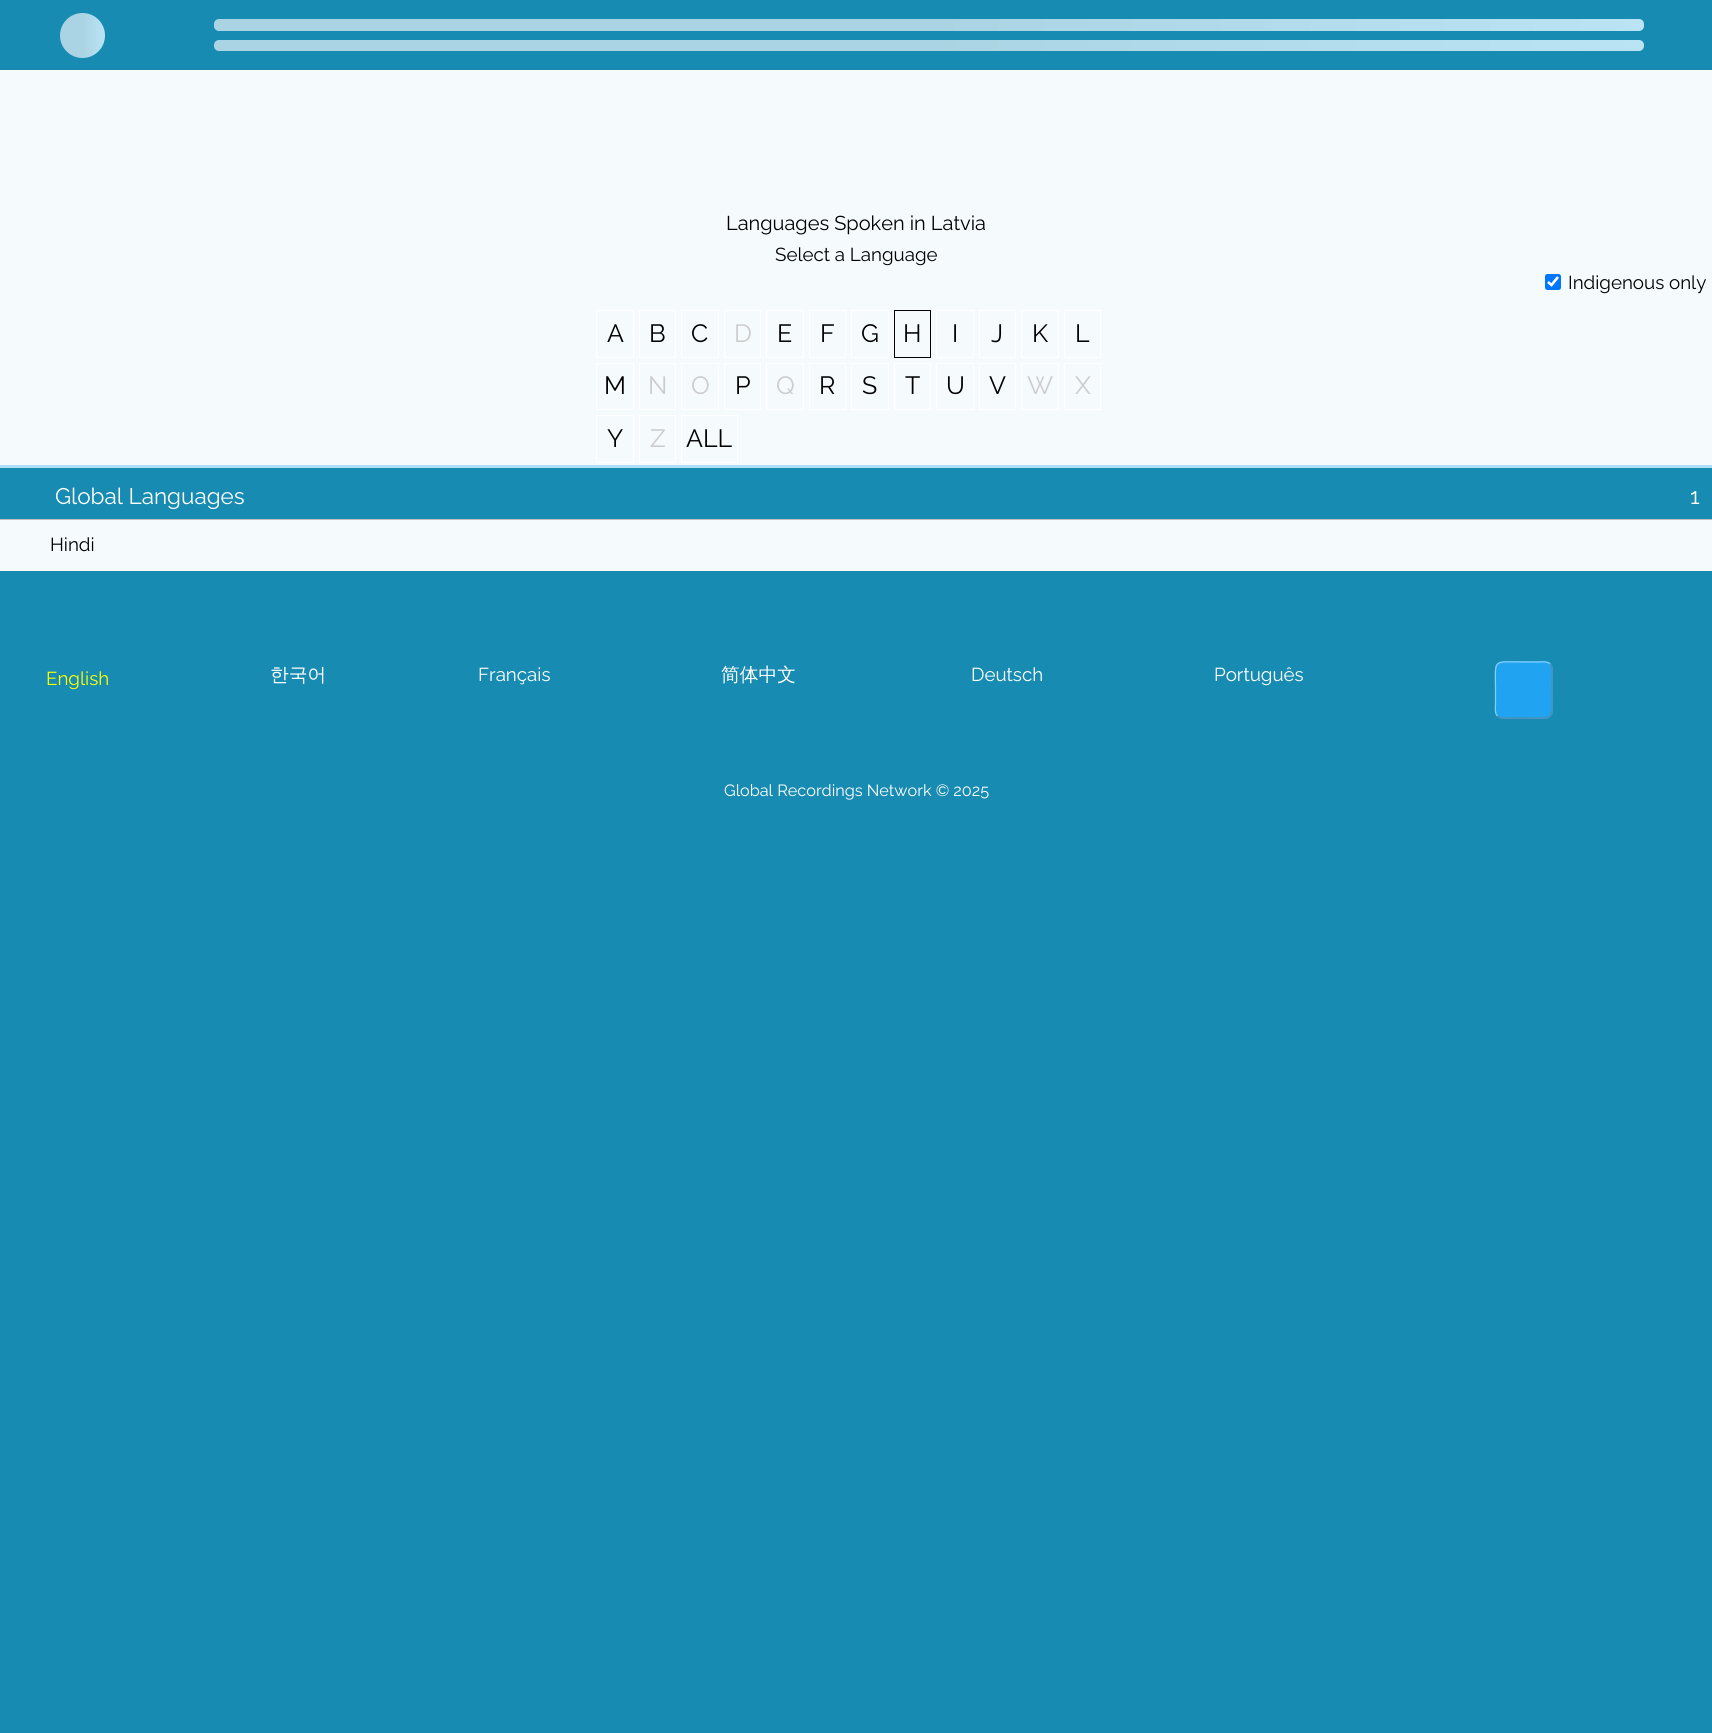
#include <cairo.h>
#include <math.h>
#include <stddef.h>


static void set_color(cairo_t *cr, unsigned color) {
    cairo_set_source_rgb(cr, (color >> 16) / 255.0, (color >> 8 & 255) / 255.0, (color & 255) / 255.0);
}

static void draw_text(cairo_t *cr, double x, double y, const char *s, const char *family, double size, int italic, int bold, unsigned color) {
    cairo_select_font_face(cr, family, italic ? CAIRO_FONT_SLANT_ITALIC : CAIRO_FONT_SLANT_NORMAL,
        bold ? CAIRO_FONT_WEIGHT_BOLD : CAIRO_FONT_WEIGHT_NORMAL);
    cairo_set_font_size(cr, size);
    set_color(cr, color);
    cairo_move_to(cr, x, y);
    cairo_show_text(cr, s);
}

static void fill_rect(cairo_t *cr, double x, double y, double w, double h, unsigned color) {
    set_color(cr, color);
    cairo_rectangle(cr, x, y, w, h);
    cairo_fill(cr);
}

static void rounded_rect(cairo_t *cr, double x, double y, double w, double h, double r) {
    cairo_new_sub_path(cr);
    cairo_arc(cr, x + w - r, y + h - r, r, 0, M_PI / 2);
    cairo_arc(cr, x + r, y + h - r, r, M_PI / 2, M_PI);
    cairo_arc(cr, x + r, y + r, r, M_PI, 1.5 * M_PI);
    cairo_arc(cr, x + w - r, y + r, r, 1.5 * M_PI, 2 * M_PI);
    cairo_close_path(cr);
}

int main(void) {
    cairo_surface_t *surface = cairo_image_surface_create(CAIRO_FORMAT_RGB24, 1712, 1733);
    cairo_t *cr = cairo_create(surface);
    cairo_font_options_t *options = cairo_font_options_create();
    cairo_font_options_set_hint_metrics(options, CAIRO_HINT_METRICS_OFF);
    cairo_font_options_set_hint_style(options, CAIRO_HINT_STYLE_NONE);
    cairo_set_font_options(cr, options);
    cairo_set_miter_limit(cr, 4);
    cairo_pattern_t *gradient;
    set_color(cr, 0x178BB2);
    cairo_paint(cr);
    gradient = cairo_pattern_create_linear(60, 35, 150, 35);
    cairo_pattern_add_color_stop_rgba(gradient, 0.25, 0.667, 0.831, 0.89, 1);
    cairo_pattern_add_color_stop_rgba(gradient, 0.5, 0.729, 0.894, 0.953, 1);
    cairo_pattern_add_color_stop_rgba(gradient, 0.75, 0.667, 0.831, 0.89, 1);
    cairo_set_source(cr, gradient);
    cairo_pattern_destroy(gradient);
    cairo_arc(cr, 82.5, 35.5, 22.5, 0, 2 * M_PI);
    cairo_fill(cr);
    gradient = cairo_pattern_create_linear(214, 25, 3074, 25);
    cairo_pattern_add_color_stop_rgba(gradient, 0.25, 0.667, 0.831, 0.89, 1);
    cairo_pattern_add_color_stop_rgba(gradient, 0.5, 0.729, 0.894, 0.953, 1);
    cairo_pattern_add_color_stop_rgba(gradient, 0.75, 0.667, 0.831, 0.89, 1);
    cairo_set_source(cr, gradient);
    cairo_pattern_destroy(gradient);
    rounded_rect(cr, 214, 19, 1430, 12, 5);
    cairo_fill(cr);
    gradient = cairo_pattern_create_linear(214, 46, 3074, 46);
    cairo_pattern_add_color_stop_rgba(gradient, 0.25, 0.667, 0.831, 0.89, 1);
    cairo_pattern_add_color_stop_rgba(gradient, 0.5, 0.729, 0.894, 0.953, 1);
    cairo_pattern_add_color_stop_rgba(gradient, 0.75, 0.667, 0.831, 0.89, 1);
    cairo_set_source(cr, gradient);
    cairo_pattern_destroy(gradient);
    rounded_rect(cr, 214, 40, 1430, 11, 5);
    cairo_fill(cr);
    fill_rect(cr, 0, 70, 1712, 501, 0xF5FAFD);
    draw_text(cr, 726, 230, "Languages Spoken in Latvia", "Raleway", 20, 0, 0, 0x000000);
    draw_text(cr, 775, 261, "Select a Language", "Raleway", 18.75, 0, 0, 0x000000);
    set_color(cr, 0x0075FF);
    rounded_rect(cr, 1545, 274, 16, 16, 2.5);
    cairo_fill(cr);
    cairo_new_path(cr);
    cairo_move_to(cr, 1548, 282);
    cairo_line_to(cr, 1551.5, 285);
    cairo_line_to(cr, 1558, 277);
    set_color(cr, 0xFFFFFF);
    cairo_set_line_width(cr, 2.6);
    cairo_stroke(cr);
    draw_text(cr, 1568, 289, "Indigenous only", "Raleway", 18.75, 0, 0, 0x000000);
    cairo_rectangle(cr, 596.5, 310.5, 37, 47);
    set_color(cr, 0xFFFFFF);
    cairo_set_line_width(cr, 1);
    cairo_stroke(cr);
    draw_text(cr, 607, 342, "A", "Raleway", 25, 0, 0, 0x000000);
    cairo_rectangle(cr, 639.5, 310.5, 36, 47);
    set_color(cr, 0xFFFFFF);
    cairo_stroke(cr);
    draw_text(cr, 649, 342, "B", "Raleway", 25, 0, 0, 0x000000);
    cairo_rectangle(cr, 681.5, 310.5, 37, 47);
    set_color(cr, 0xFFFFFF);
    cairo_stroke(cr);
    draw_text(cr, 691, 342, "C", "Raleway", 25, 0, 0, 0x000000);
    cairo_rectangle(cr, 724.5, 310.5, 36, 47);
    set_color(cr, 0xFFFFFF);
    cairo_stroke(cr);
    draw_text(cr, 734, 342, "D", "Raleway", 25, 0, 0, 0xCCCCCC);
    cairo_rectangle(cr, 766.5, 310.5, 37, 47);
    set_color(cr, 0xFFFFFF);
    cairo_stroke(cr);
    draw_text(cr, 777, 342, "E", "Raleway", 25, 0, 0, 0x000000);
    cairo_rectangle(cr, 809.5, 310.5, 36, 47);
    set_color(cr, 0xFFFFFF);
    cairo_stroke(cr);
    draw_text(cr, 820, 342, "F", "Raleway", 25, 0, 0, 0x000000);
    cairo_rectangle(cr, 851.5, 310.5, 37, 47);
    set_color(cr, 0xFFFFFF);
    cairo_stroke(cr);
    draw_text(cr, 861, 342, "G", "Raleway", 25, 0, 0, 0x000000);
    cairo_rectangle(cr, 894.5, 310.5, 36, 47);
    cairo_stroke(cr);
    draw_text(cr, 903, 342, "H", "Raleway", 25, 0, 0, 0x000000);
    cairo_rectangle(cr, 936.5, 310.5, 37, 47);
    set_color(cr, 0xFFFFFF);
    cairo_stroke(cr);
    draw_text(cr, 952, 342, "I", "Raleway", 25, 0, 0, 0x000000);
    cairo_rectangle(cr, 979.5, 310.5, 36, 47);
    set_color(cr, 0xFFFFFF);
    cairo_stroke(cr);
    draw_text(cr, 991, 342, "J", "Raleway", 25, 0, 0, 0x000000);
    cairo_rectangle(cr, 1021.5, 310.5, 37, 47);
    set_color(cr, 0xFFFFFF);
    cairo_stroke(cr);
    draw_text(cr, 1032, 342, "K", "Raleway", 25, 0, 0, 0x000000);
    cairo_rectangle(cr, 1064.5, 310.5, 36, 47);
    set_color(cr, 0xFFFFFF);
    cairo_stroke(cr);
    draw_text(cr, 1075, 342, "L", "Raleway", 25, 0, 0, 0x000000);
    cairo_rectangle(cr, 596.5, 363.5, 37, 46);
    set_color(cr, 0xFFFFFF);
    cairo_stroke(cr);
    draw_text(cr, 604, 394, "M", "Raleway", 25, 0, 0, 0x000000);
    cairo_rectangle(cr, 639.5, 363.5, 36, 46);
    set_color(cr, 0xFFFFFF);
    cairo_stroke(cr);
    draw_text(cr, 648, 394, "N", "Raleway", 25, 0, 0, 0xCCCCCC);
    cairo_rectangle(cr, 681.5, 363.5, 37, 46);
    set_color(cr, 0xFFFFFF);
    cairo_stroke(cr);
    draw_text(cr, 691, 394, "O", "Raleway", 25, 0, 0, 0xCCCCCC);
    cairo_rectangle(cr, 724.5, 363.5, 36, 46);
    set_color(cr, 0xFFFFFF);
    cairo_stroke(cr);
    draw_text(cr, 735, 394, "P", "Raleway", 25, 0, 0, 0x000000);
    cairo_rectangle(cr, 766.5, 363.5, 37, 46);
    set_color(cr, 0xFFFFFF);
    cairo_stroke(cr);
    draw_text(cr, 776, 394, "Q", "Raleway", 25, 0, 0, 0xCCCCCC);
    cairo_rectangle(cr, 809.5, 363.5, 36, 46);
    set_color(cr, 0xFFFFFF);
    cairo_stroke(cr);
    draw_text(cr, 819, 394, "R", "Raleway", 25, 0, 0, 0x000000);
    cairo_rectangle(cr, 851.5, 363.5, 37, 46);
    set_color(cr, 0xFFFFFF);
    cairo_stroke(cr);
    draw_text(cr, 862, 394, "S", "Raleway", 25, 0, 0, 0x000000);
    cairo_rectangle(cr, 894.5, 363.5, 36, 46);
    set_color(cr, 0xFFFFFF);
    cairo_stroke(cr);
    draw_text(cr, 905, 394, "T", "Raleway", 25, 0, 0, 0x000000);
    cairo_rectangle(cr, 936.5, 363.5, 37, 46);
    set_color(cr, 0xFFFFFF);
    cairo_stroke(cr);
    draw_text(cr, 946, 394, "U", "Raleway", 25, 0, 0, 0x000000);
    cairo_rectangle(cr, 979.5, 363.5, 36, 46);
    set_color(cr, 0xFFFFFF);
    cairo_stroke(cr);
    draw_text(cr, 989, 394, "V", "Raleway", 25, 0, 0, 0x000000);
    cairo_rectangle(cr, 1021.5, 363.5, 37, 46);
    set_color(cr, 0xFFFFFF);
    cairo_stroke(cr);
    draw_text(cr, 1027, 394, "W", "Raleway", 25, 0, 0, 0xCCCCCC);
    cairo_rectangle(cr, 1064.5, 363.5, 36, 46);
    set_color(cr, 0xFFFFFF);
    cairo_stroke(cr);
    draw_text(cr, 1075, 394, "X", "Raleway", 25, 0, 0, 0xCCCCCC);
    cairo_rectangle(cr, 596.5, 415.5, 37, 47);
    set_color(cr, 0xFFFFFF);
    cairo_stroke(cr);
    draw_text(cr, 607, 447, "Y", "Raleway", 25, 0, 0, 0x000000);
    cairo_rectangle(cr, 639.5, 415.5, 36, 47);
    set_color(cr, 0xFFFFFF);
    cairo_stroke(cr);
    draw_text(cr, 650, 447, "Z", "Raleway", 25, 0, 0, 0xCCCCCC);
    cairo_rectangle(cr, 681.5, 415.5, 56, 47);
    set_color(cr, 0xFFFFFF);
    cairo_stroke(cr);
    draw_text(cr, 686, 447, "ALL", "Raleway", 25, 0, 0, 0x000000);
    fill_rect(cr, 0, 468, 1712, 51, 0x178BB2);
    fill_rect(cr, 0, 465, 1712, 3, 0xACE0F8);
    draw_text(cr, 55, 504, "Global Languages", "Raleway", 22.5, 0, 0, 0xFFFFFF);
    draw_text(cr, 1690, 504, "1", "Raleway", 22.5, 0, 0, 0xFFFFFF);
    fill_rect(cr, 0, 519, 1712, 1, 0xC0C0C0);
    draw_text(cr, 50, 551, "Hindi", "Raleway", 18.75, 0, 0, 0x000000);
    draw_text(cr, 46, 685, "English", "Raleway", 18.75, 0, 0, 0xFFFF00);
    draw_text(cr, 270, 681, "한국어", "WenQuanYi Zen Hei Medium", 18.75, 0, 0, 0xFFFFFF);
    draw_text(cr, 478, 681, "Français", "Raleway", 18.75, 0, 0, 0xFFFFFF);
    draw_text(cr, 721, 681, "简体中文", "WenQuanYi Zen Hei Medium", 18.75, 0, 0, 0xFFFFFF);
    draw_text(cr, 971, 681, "Deutsch", "Raleway", 18.75, 0, 0, 0xFFFFFF);
    draw_text(cr, 1214, 681, "Português", "Raleway", 18.75, 0, 0, 0xFFFFFF);
    set_color(cr, 0x20A4F1);
    rounded_rect(cr, 1495, 661, 58, 58, 8);
    cairo_fill(cr);
    cairo_new_path(cr);
    cairo_move_to(cr, 1550, 664);
    cairo_curve_to(cr, 1553, 667, 1552, 672, 1552, 676);
    cairo_line_to(cr, 1552, 690);
    cairo_curve_to(cr, 1552, 722, 1556, 718, 1524, 718);
    cairo_line_to(cr, 1509.5, 718);
    cairo_curve_to(cr, 1506, 718, 1500.5, 719, 1497.5, 716);
    set_color(cr, 0x5A89A7);
    cairo_set_line_width(cr, 1.2);
    cairo_stroke(cr);
    cairo_new_path(cr);
    cairo_move_to(cr, 1497.5, 716);
    cairo_curve_to(cr, 1494.5, 713, 1495.5, 708, 1495.5, 704);
    cairo_line_to(cr, 1495.5, 690);
    cairo_curve_to(cr, 1495.5, 658, 1491.5, 662, 1524, 662);
    cairo_line_to(cr, 1538, 662);
    cairo_curve_to(cr, 1541.5, 662, 1547, 661, 1550, 664);
    set_color(cr, 0x87CEFA);
    cairo_stroke(cr);
    draw_text(cr, 724, 796, "Global Recordings Network © 2025", "Raleway", 16.25, 0, 0, 0xFFFFFF);
    cairo_surface_write_to_png(surface, "output.png");
    cairo_font_options_destroy(options);
    cairo_destroy(cr);
    cairo_surface_destroy(surface);
    return 0;
}
